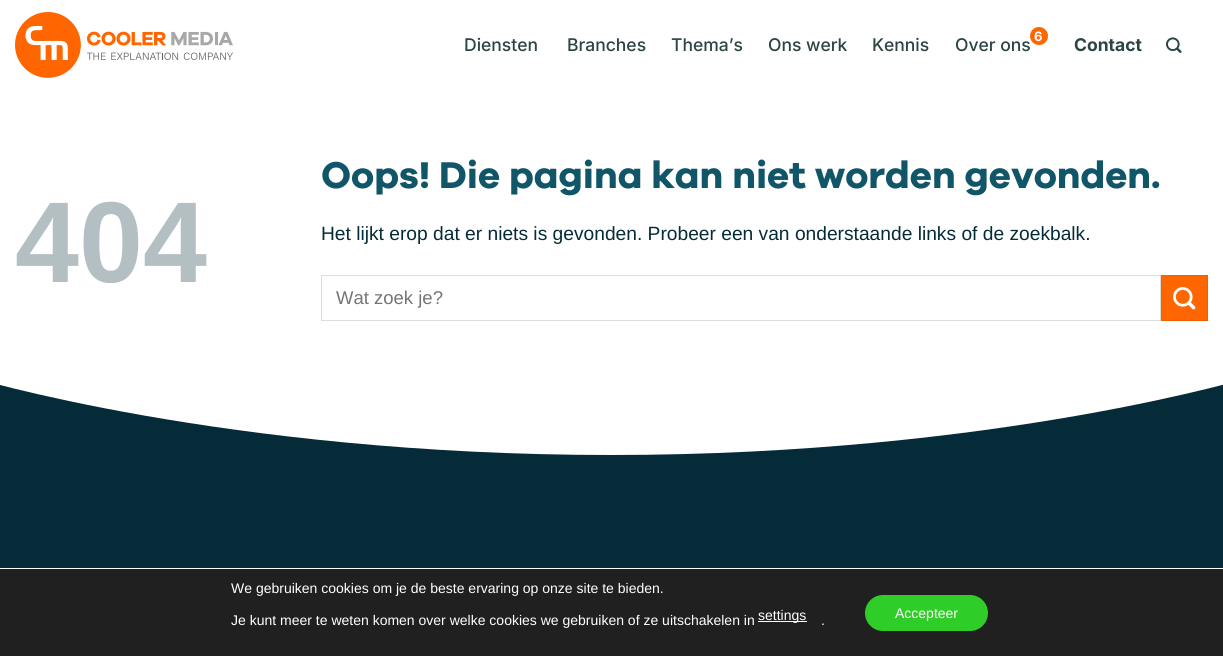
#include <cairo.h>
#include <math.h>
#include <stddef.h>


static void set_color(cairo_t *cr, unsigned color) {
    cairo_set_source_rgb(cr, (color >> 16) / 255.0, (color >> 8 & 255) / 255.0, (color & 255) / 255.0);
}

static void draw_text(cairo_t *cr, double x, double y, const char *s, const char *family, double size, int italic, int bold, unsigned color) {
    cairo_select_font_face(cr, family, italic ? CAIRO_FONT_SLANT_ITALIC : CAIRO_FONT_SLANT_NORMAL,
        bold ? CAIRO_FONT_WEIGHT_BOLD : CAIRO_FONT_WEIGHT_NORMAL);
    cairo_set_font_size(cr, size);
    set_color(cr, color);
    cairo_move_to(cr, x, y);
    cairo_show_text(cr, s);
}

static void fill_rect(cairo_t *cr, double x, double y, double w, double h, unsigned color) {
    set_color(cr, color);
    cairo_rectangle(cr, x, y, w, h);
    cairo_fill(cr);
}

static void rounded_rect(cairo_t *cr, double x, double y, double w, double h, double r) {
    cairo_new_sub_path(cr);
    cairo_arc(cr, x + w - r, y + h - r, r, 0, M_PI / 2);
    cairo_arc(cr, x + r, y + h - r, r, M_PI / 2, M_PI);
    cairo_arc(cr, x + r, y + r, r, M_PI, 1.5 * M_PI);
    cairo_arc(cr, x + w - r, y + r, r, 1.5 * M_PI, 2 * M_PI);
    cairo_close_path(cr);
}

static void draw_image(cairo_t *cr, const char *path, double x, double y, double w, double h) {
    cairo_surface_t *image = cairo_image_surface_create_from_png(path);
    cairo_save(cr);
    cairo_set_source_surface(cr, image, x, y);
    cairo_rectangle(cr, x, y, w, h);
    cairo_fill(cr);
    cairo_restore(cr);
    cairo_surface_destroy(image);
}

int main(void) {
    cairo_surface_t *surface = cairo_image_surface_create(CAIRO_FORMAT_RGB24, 1223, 656);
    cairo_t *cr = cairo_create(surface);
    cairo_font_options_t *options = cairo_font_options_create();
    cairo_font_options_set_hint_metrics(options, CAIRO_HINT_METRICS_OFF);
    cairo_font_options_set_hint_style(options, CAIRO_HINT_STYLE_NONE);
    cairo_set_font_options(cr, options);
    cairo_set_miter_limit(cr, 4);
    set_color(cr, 0xFFFFFF);
    cairo_paint(cr);
    draw_image(cr, "assets/img1.png", 15, 12, 218, 66);
    draw_text(cr, 464, 51, "Diensten", "Inter Medium", 17.5, 0, 0, 0x2B4444);
    draw_text(cr, 567, 51, "Branches", "Inter Medium", 17.5, 0, 0, 0x2B4444);
    draw_text(cr, 671, 51, "Thema’s", "Inter Medium", 17.5, 0, 0, 0x2B4444);
    draw_text(cr, 768, 51, "Ons werk", "Inter Medium", 17.5, 0, 0, 0x2B4444);
    draw_text(cr, 872, 51, "Kennis", "Inter Medium", 17.5, 0, 0, 0x2B4444);
    set_color(cr, 0xFF6600);
    cairo_new_path(cr);
    cairo_arc(cr, 1039, 36, 9, 0, 2 * M_PI);
    cairo_fill(cr);
    draw_text(cr, 1034, 41, "6", "Inter", 13, 0, 1, 0xFFFFFF);
    draw_text(cr, 955, 51, "Over ons", "Inter Medium", 17.5, 0, 0, 0x2B4444);
    draw_text(cr, 1074, 51, "Contact", "Inter", 17.5, 0, 1, 0x2B4444);
    draw_image(cr, "assets/img2.png", 1166, 37, 16, 16);
    draw_text(cr, 15, 282, "404", "Liberation Sans", 115, 0, 1, 0xB4BFC3);
    draw_text(cr, 321, 188, "Oops! Die pagina kan niet worden gevonden.", "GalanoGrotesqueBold", 38.4, 0, 1, 0x115668);
    draw_text(cr, 321, 240, "Het lijkt erop dat er niets is gevonden. Probeer een van onderstaande links of de zoekbalk.", "Liberation Sans", 19.2, 0, 0, 0x062B38);
    cairo_rectangle(cr, 321.5, 275.5, 839, 45);
    set_color(cr, 0xDDDDDD);
    cairo_set_line_width(cr, 1);
    cairo_stroke(cr);
    draw_text(cr, 336, 304, "Wat zoek je?", "Liberation Sans", 18.5, 0, 0, 0x757575);
    set_color(cr, 0xFF6600);
    cairo_rectangle(cr, 1161.5, 275.5, 46, 45);
    cairo_fill_preserve(cr);
    set_color(cr, 0xF26100);
    cairo_stroke(cr);
    draw_image(cr, "assets/img3.png", 1173, 287, 23, 23);
    fill_rect(cr, 0, 384, 1223, 184, 0x062B38);
    cairo_save(cr);
    cairo_rectangle(cr, 0, 375, 1223, 150);
    cairo_clip(cr);
    set_color(cr, 0xFFFFFF);
    cairo_new_path(cr);
    cairo_move_to(cr, 611, 455);
    cairo_curve_to(cr, 998, 455, 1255, 376, 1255, 376);
    cairo_line_to(cr, -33, 376);
    cairo_curve_to(cr, -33, 376, 224, 455, 611, 455);
    cairo_close_path(cr);
    cairo_move_to(cr, -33, 535);
    cairo_line_to(cr, 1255, 535);
    cairo_line_to(cr, 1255, 536);
    cairo_line_to(cr, -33, 536);
    cairo_close_path(cr);
    cairo_fill(cr);
    cairo_restore(cr);
    fill_rect(cr, 0, 569, 1223, 87, 0x202020);
    draw_text(cr, 231, 593, "We gebruiken cookies om je de beste ervaring op onze site te bieden.", "Liberation Sans", 14, 0, 0, 0xFFFFFF);
    draw_text(cr, 231, 625, "Je kunt meer te weten komen over welke cookies we gebruiken of ze uitschakelen in", "Liberation Sans", 14, 0, 0, 0xFFFFFF);
    fill_rect(cr, 758, 621, 49, 1, 0xFFFFFF);
    draw_text(cr, 758, 620, "settings", "Liberation Sans", 14, 0, 0, 0xFFFFFF);
    draw_text(cr, 821, 625, ".", "Liberation Sans", 14, 0, 0, 0xFFFFFF);
    set_color(cr, 0x2FCD27);
    rounded_rect(cr, 865, 595, 123, 36, 18);
    cairo_fill(cr);
    draw_text(cr, 895, 618, "Accepteer", "Liberation Sans", 14, 0, 0, 0xFFFFFF);
    cairo_surface_write_to_png(surface, "output.png");
    cairo_font_options_destroy(options);
    cairo_destroy(cr);
    cairo_surface_destroy(surface);
    return 0;
}
